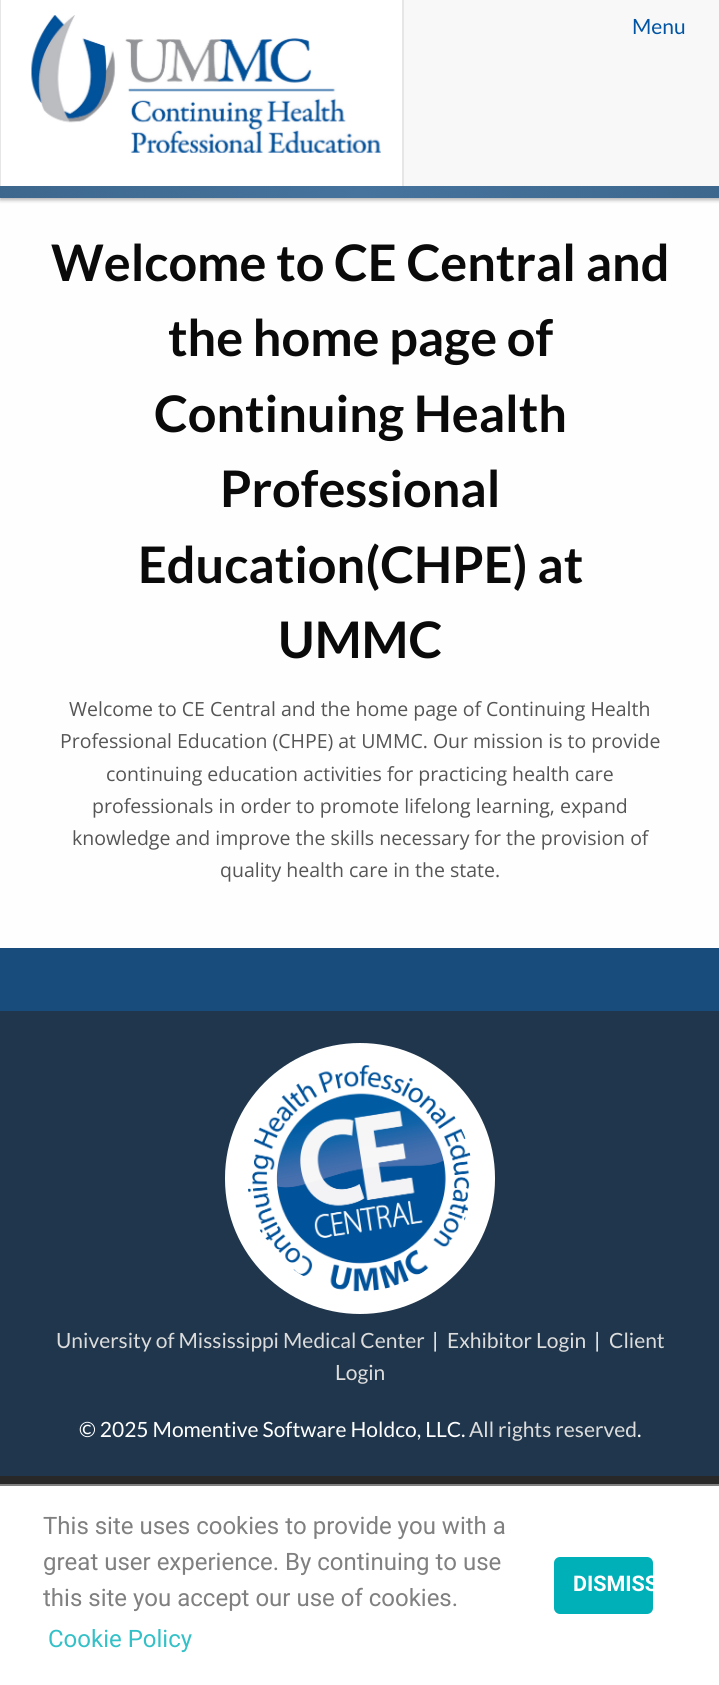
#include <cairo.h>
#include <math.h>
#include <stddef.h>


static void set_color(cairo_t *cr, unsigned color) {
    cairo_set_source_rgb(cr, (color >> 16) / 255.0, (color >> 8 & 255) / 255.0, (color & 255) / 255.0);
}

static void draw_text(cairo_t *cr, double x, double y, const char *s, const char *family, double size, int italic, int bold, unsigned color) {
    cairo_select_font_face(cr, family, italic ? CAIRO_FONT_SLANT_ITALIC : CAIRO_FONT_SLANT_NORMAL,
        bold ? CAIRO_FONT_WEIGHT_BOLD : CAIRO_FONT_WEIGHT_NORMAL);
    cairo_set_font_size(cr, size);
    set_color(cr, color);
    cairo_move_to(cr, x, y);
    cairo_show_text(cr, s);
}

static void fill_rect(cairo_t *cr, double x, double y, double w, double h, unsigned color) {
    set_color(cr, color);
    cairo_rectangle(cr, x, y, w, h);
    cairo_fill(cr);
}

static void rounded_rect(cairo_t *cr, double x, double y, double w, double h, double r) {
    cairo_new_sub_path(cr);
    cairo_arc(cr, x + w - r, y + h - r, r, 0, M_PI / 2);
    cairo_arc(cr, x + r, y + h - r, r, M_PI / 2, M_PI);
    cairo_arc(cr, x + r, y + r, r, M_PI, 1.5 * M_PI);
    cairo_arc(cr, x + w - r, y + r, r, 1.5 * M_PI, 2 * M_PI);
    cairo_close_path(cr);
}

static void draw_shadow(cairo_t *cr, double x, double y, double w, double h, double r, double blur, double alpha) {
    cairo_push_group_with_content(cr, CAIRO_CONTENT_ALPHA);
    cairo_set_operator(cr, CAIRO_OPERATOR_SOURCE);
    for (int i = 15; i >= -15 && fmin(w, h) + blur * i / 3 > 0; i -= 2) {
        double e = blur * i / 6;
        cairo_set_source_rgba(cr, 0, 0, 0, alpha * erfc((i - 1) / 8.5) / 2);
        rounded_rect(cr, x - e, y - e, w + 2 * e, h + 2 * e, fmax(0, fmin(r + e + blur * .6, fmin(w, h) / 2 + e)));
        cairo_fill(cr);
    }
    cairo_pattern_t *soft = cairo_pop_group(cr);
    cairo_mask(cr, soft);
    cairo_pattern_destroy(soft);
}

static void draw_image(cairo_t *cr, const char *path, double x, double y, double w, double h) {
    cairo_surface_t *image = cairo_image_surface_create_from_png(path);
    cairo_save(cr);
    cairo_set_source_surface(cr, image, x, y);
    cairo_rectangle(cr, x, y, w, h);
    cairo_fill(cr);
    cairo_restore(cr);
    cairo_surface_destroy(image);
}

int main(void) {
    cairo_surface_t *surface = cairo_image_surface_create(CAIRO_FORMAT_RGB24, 719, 1685);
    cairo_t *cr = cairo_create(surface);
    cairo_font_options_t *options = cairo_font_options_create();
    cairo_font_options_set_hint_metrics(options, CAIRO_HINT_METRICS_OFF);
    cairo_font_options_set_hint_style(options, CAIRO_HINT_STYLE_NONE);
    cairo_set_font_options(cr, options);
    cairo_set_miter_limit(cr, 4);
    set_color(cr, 0x282828);
    cairo_paint(cr);
    fill_rect(cr, 0, 198, 719, 750, 0xFEFEFE);
    set_color(cr, 0x000000);
    draw_shadow(cr, 0, 2, 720, 198, 0, 2, 0.3);
    fill_rect(cr, 404, 0, 315, 186, 0xF8F8F8);
    draw_image(cr, "assets/img1.png", 0, 186, 719, 12);
    fill_rect(cr, 1, 0, 401, 186, 0xFFFFFF);
    fill_rect(cr, 402, 0, 2, 186, 0xE6E6E6);
    fill_rect(cr, 0, 0, 1, 186, 0xE6E6E6);
    draw_image(cr, "assets/img2.png", 31, 15, 350, 138);
    draw_text(cr, 632, 34, "Menu", "Lato", 21, 0, 0, 0x0054A3);
    draw_text(cr, 51, 281, "Welcome to CE Central and", "Lato", 50.4, 0, 1, 0x0A0A0A);
    draw_text(cr, 168, 356, "the home page of", "Lato", 50.4, 0, 1, 0x0A0A0A);
    draw_text(cr, 154, 432, "Continuing Health", "Lato", 50.4, 0, 1, 0x0A0A0A);
    draw_text(cr, 220, 507, "Professional", "Lato", 50.4, 0, 1, 0x0A0A0A);
    draw_text(cr, 138, 583, "Education(CHPE) at", "Lato", 50.4, 0, 1, 0x0A0A0A);
    draw_text(cr, 278, 658, "UMMC", "Lato", 50.4, 0, 1, 0x0A0A0A);
    draw_text(cr, 69, 716, "Welcome to CE Central and the home page of Continuing Health", "Open Sans", 19.5, 0, 0, 0x555555);
    draw_text(cr, 60, 748, "Professional Education (CHPE) at UMMC. Our mission is to provide", "Open Sans", 19.5, 0, 0, 0x555555);
    draw_text(cr, 106, 781, "continuing education activities for practicing health care", "Open Sans", 19.5, 0, 0, 0x555555);
    draw_text(cr, 92, 813, "professionals in order to promote lifelong learning, expand", "Open Sans", 19.5, 0, 0, 0x555555);
    draw_text(cr, 72, 845, "knowledge and improve the skills necessary for the provision of", "Open Sans", 19.5, 0, 0, 0x555555);
    draw_text(cr, 220, 877, "quality health care in the state.", "Open Sans", 19.5, 0, 0, 0x555555);
    fill_rect(cr, 0, 1011, 719, 465, 0x1F364C);
    fill_rect(cr, 0, 948, 719, 63, 0x184C7C);
    set_color(cr, 0xFFFFFF);
    rounded_rect(cr, 225, 1043, 270, 271, 135);
    cairo_fill(cr);
    draw_image(cr, "assets/img3.png", 248, 1065, 223, 227);
    draw_text(cr, 56, 1348, "University of Mississippi Medical Center", "Lato", 21, 0, 0, 0xDCDCDC);
    draw_text(cr, 432, 1348, "|", "Lato", 21, 0, 0, 0xFFFFFF);
    draw_text(cr, 447, 1348, "Exhibitor Login", "Lato", 21, 0, 0, 0xDCDCDC);
    draw_text(cr, 594, 1348, "|", "Lato", 21, 0, 0, 0xFFFFFF);
    draw_text(cr, 609, 1348, "Client", "Lato", 21, 0, 0, 0xDCDCDC);
    draw_text(cr, 335, 1380, "Login", "Lato", 21, 0, 0, 0xDCDCDC);
    draw_text(cr, 79, 1437, "© 2025 Momentive Software Holdco, LLC.", "Lato", 21, 0, 0, 0xFFFFFF);
    draw_text(cr, 469, 1437, "All rights reserved", "Lato", 21, 0, 0, 0xDCDCDC);
    draw_text(cr, 637, 1437, ".", "Lato", 21, 0, 0, 0xFFFFFF);
    fill_rect(cr, 0, 1486, 719, 199, 0xFFFFFF);
    fill_rect(cr, 0, 1484, 719, 2, 0x808080);
    draw_text(cr, 43, 1534, "This site uses cookies to provide you with a", "Roboto", 24, 0, 0, 0x808080);
    draw_text(cr, 43, 1570, "great user experience. By continuing to use", "Roboto", 24, 0, 0, 0x808080);
    draw_text(cr, 43, 1606, "this site you accept our use of cookies.", "Roboto", 24, 0, 0, 0x808080);
    draw_text(cr, 48, 1647, "Cookie Policy", "Roboto", 24, 0, 0, 0x33C0C7);
    set_color(cr, 0x00B0B9);
    rounded_rect(cr, 555, 1558, 97, 55, 5);
    cairo_fill_preserve(cr);
    cairo_stroke(cr);
    draw_text(cr, 573, 1591, "DISMISS", "Roboto", 21.5, 0, 1, 0xFFFFFF);
    cairo_surface_write_to_png(surface, "output.png");
    cairo_font_options_destroy(options);
    cairo_destroy(cr);
    cairo_surface_destroy(surface);
    return 0;
}
